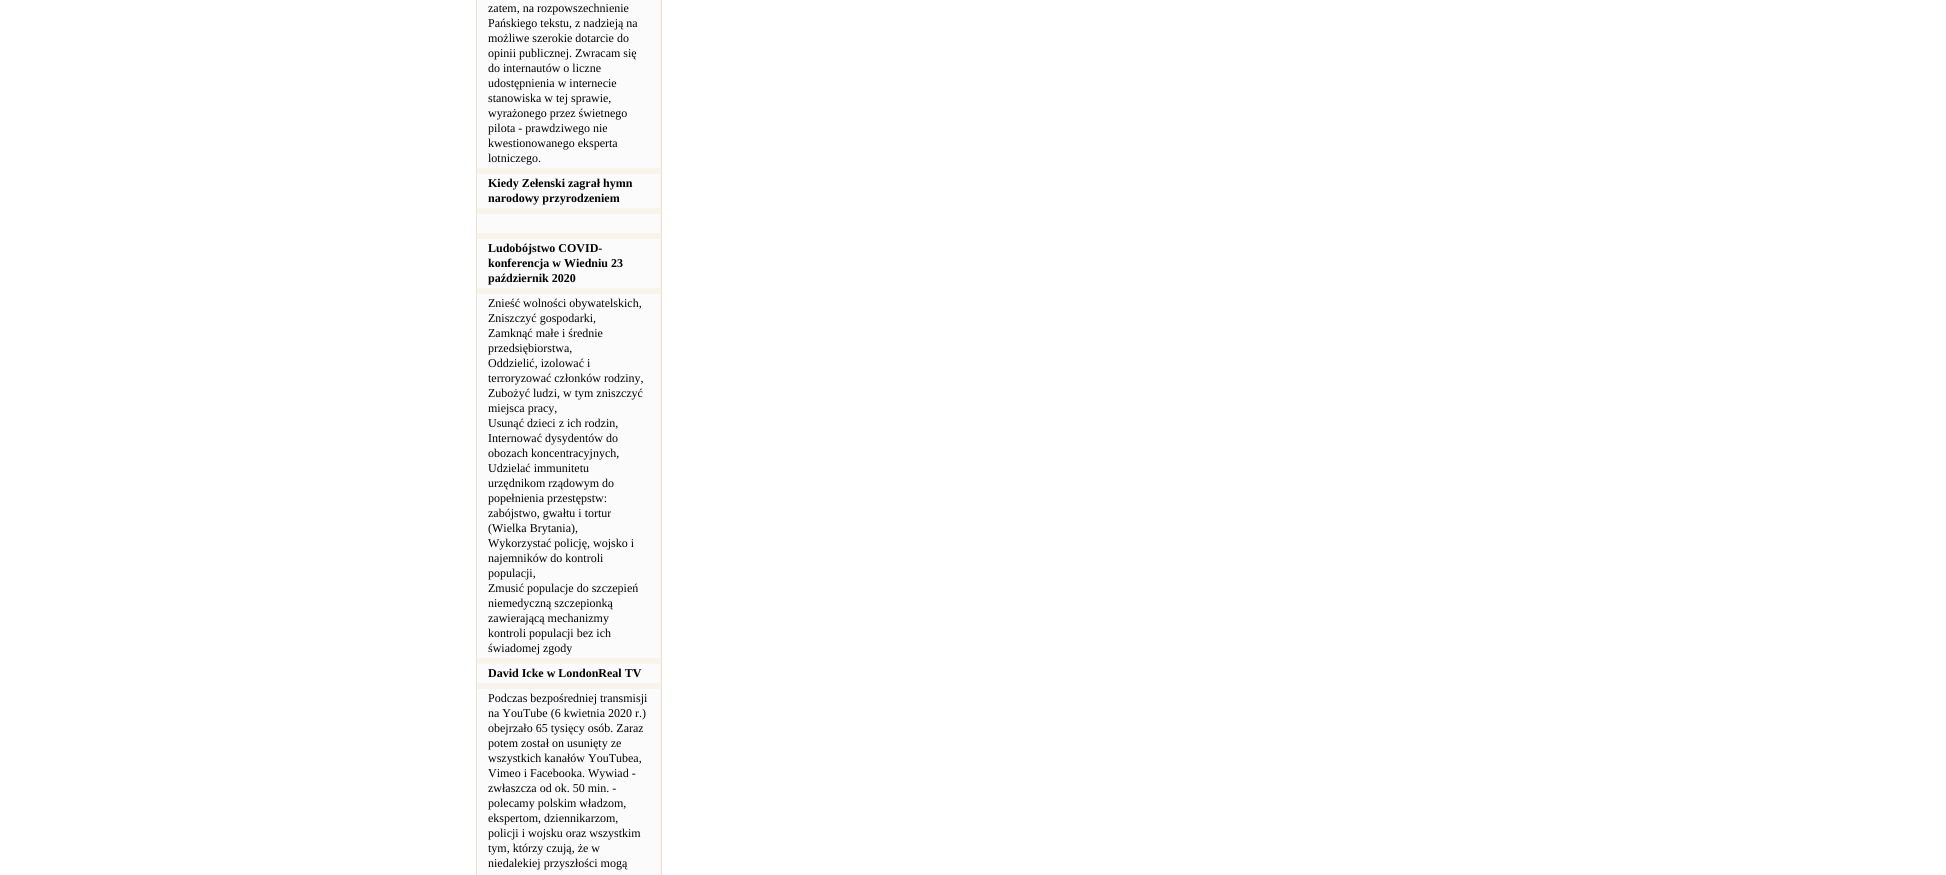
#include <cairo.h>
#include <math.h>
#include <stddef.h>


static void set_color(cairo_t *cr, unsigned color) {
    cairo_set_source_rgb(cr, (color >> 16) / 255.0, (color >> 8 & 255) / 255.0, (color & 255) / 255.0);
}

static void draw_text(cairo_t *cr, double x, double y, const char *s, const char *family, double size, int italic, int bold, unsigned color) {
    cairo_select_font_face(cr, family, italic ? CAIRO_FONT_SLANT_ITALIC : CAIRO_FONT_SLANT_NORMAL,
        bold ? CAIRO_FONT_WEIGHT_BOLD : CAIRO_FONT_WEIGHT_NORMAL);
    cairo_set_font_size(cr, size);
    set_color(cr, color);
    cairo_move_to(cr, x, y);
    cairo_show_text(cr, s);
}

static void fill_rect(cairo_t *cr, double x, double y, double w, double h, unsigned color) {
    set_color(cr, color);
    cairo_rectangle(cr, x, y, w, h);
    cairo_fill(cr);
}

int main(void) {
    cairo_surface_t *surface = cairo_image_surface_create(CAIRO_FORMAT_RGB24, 1946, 875);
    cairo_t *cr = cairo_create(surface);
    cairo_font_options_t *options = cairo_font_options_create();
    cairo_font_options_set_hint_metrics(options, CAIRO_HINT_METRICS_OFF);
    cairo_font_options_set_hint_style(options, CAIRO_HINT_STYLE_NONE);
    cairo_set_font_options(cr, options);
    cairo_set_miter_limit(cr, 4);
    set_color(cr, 0xFFFFFF);
    cairo_paint(cr);
    cairo_rectangle(cr, 476.5, -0.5, 185, 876);
    set_color(cr, 0xE7E3DA);
    cairo_set_line_width(cr, 1);
    cairo_stroke(cr);
    fill_rect(cr, 477, 0, 183, 168, 0xFBFBFB);
    fill_rect(cr, 660, 0, 1, 168, 0xF8F4E9);
    draw_text(cr, 488, 12, "zatem, na rozpowszechnienie", "Liberation Serif", 12, 0, 0, 0x000000);
    draw_text(cr, 488, 27, "Pańskiego tekstu, z nadzieją na", "Liberation Serif", 12, 0, 0, 0x000000);
    draw_text(cr, 488, 42, "możliwe szerokie dotarcie do", "Liberation Serif", 12, 0, 0, 0x000000);
    draw_text(cr, 488, 57, "opinii publicznej. Zwracam się", "Liberation Serif", 12, 0, 0, 0x000000);
    draw_text(cr, 488, 72, "do internautów o liczne", "Liberation Serif", 12, 0, 0, 0x000000);
    draw_text(cr, 488, 87, "udostępnienia w internecie", "Liberation Serif", 12, 0, 0, 0x000000);
    draw_text(cr, 488, 102, "stanowiska w tej sprawie,", "Liberation Serif", 12, 0, 0, 0x000000);
    draw_text(cr, 488, 117, "wyrażonego przez świetnego", "Liberation Serif", 12, 0, 0, 0x000000);
    draw_text(cr, 488, 132, "pilota - prawdziwego nie", "Liberation Serif", 12, 0, 0, 0x000000);
    draw_text(cr, 488, 147, "kwestionowanego eksperta", "Liberation Serif", 12, 0, 0, 0x000000);
    draw_text(cr, 488, 162, "lotniczego.", "Liberation Serif", 12, 0, 0, 0x000000);
    fill_rect(cr, 477, 168, 184, 6, 0xF8F4E9);
    fill_rect(cr, 477, 174, 183, 34, 0xFBFBFB);
    fill_rect(cr, 660, 173, 1, 35, 0xF8F4E9);
    draw_text(cr, 488, 187, "Kiedy Zełenski zagrał hymn", "Liberation Serif", 12, 0, 1, 0x000000);
    draw_text(cr, 488, 202, "narodowy przyrodzeniem", "Liberation Serif", 12, 0, 1, 0x000000);
    fill_rect(cr, 477, 208, 184, 6, 0xF8F4E9);
    fill_rect(cr, 477, 214, 183, 19, 0xFBFBFB);
    fill_rect(cr, 660, 213, 1, 20, 0xF8F4E9);
    fill_rect(cr, 477, 233, 184, 6, 0xF8F4E9);
    fill_rect(cr, 477, 239, 183, 49, 0xFBFBFB);
    fill_rect(cr, 660, 238, 1, 50, 0xF8F4E9);
    draw_text(cr, 488, 252, "Ludobójstwo COVID-", "Liberation Serif", 12, 0, 1, 0x000000);
    draw_text(cr, 488, 267, "konferencja w Wiedniu 23", "Liberation Serif", 12, 0, 1, 0x000000);
    draw_text(cr, 488, 282, "październik 2020", "Liberation Serif", 12, 0, 1, 0x000000);
    fill_rect(cr, 477, 288, 184, 6, 0xF8F4E9);
    fill_rect(cr, 477, 294, 183, 364, 0xFBFBFB);
    fill_rect(cr, 660, 293, 1, 365, 0xF8F4E9);
    draw_text(cr, 488, 307, "Znieść wolności obywatelskich,", "Liberation Serif", 12, 0, 0, 0x000000);
    draw_text(cr, 488, 322, "Zniszczyć gospodarki,", "Liberation Serif", 12, 0, 0, 0x000000);
    draw_text(cr, 488, 337, "Zamknąć małe i średnie", "Liberation Serif", 12, 0, 0, 0x000000);
    draw_text(cr, 488, 352, "przedsiębiorstwa,", "Liberation Serif", 12, 0, 0, 0x000000);
    draw_text(cr, 488, 367, "Oddzielić, izolować i", "Liberation Serif", 12, 0, 0, 0x000000);
    draw_text(cr, 488, 382, "terroryzować członków rodziny,", "Liberation Serif", 12, 0, 0, 0x000000);
    draw_text(cr, 488, 397, "Zubożyć ludzi, w tym zniszczyć", "Liberation Serif", 12, 0, 0, 0x000000);
    draw_text(cr, 488, 412, "miejsca pracy,", "Liberation Serif", 12, 0, 0, 0x000000);
    draw_text(cr, 488, 427, "Usunąć dzieci z ich rodzin,", "Liberation Serif", 12, 0, 0, 0x000000);
    draw_text(cr, 488, 442, "Internować dysydentów do", "Liberation Serif", 12, 0, 0, 0x000000);
    draw_text(cr, 488, 457, "obozach koncentracyjnych,", "Liberation Serif", 12, 0, 0, 0x000000);
    draw_text(cr, 488, 472, "Udzielać immunitetu", "Liberation Serif", 12, 0, 0, 0x000000);
    draw_text(cr, 488, 487, "urzędnikom rządowym do", "Liberation Serif", 12, 0, 0, 0x000000);
    draw_text(cr, 488, 502, "popełnienia przestępstw:", "Liberation Serif", 12, 0, 0, 0x000000);
    draw_text(cr, 488, 517, "zabójstwo, gwałtu i tortur", "Liberation Serif", 12, 0, 0, 0x000000);
    draw_text(cr, 488, 532, "(Wielka Brytania),", "Liberation Serif", 12, 0, 0, 0x000000);
    draw_text(cr, 488, 547, "Wykorzystać policję, wojsko i", "Liberation Serif", 12, 0, 0, 0x000000);
    draw_text(cr, 488, 562, "najemników do kontroli", "Liberation Serif", 12, 0, 0, 0x000000);
    draw_text(cr, 488, 577, "populacji,", "Liberation Serif", 12, 0, 0, 0x000000);
    draw_text(cr, 488, 592, "Zmusić populacje do szczepień", "Liberation Serif", 12, 0, 0, 0x000000);
    draw_text(cr, 488, 607, "niemedyczną szczepionką", "Liberation Serif", 12, 0, 0, 0x000000);
    draw_text(cr, 488, 622, "zawierającą mechanizmy", "Liberation Serif", 12, 0, 0, 0x000000);
    draw_text(cr, 488, 637, "kontroli populacji bez ich", "Liberation Serif", 12, 0, 0, 0x000000);
    draw_text(cr, 488, 652, "świadomej zgody", "Liberation Serif", 12, 0, 0, 0x000000);
    fill_rect(cr, 477, 658, 184, 6, 0xF8F4E9);
    fill_rect(cr, 477, 664, 183, 19, 0xFBFBFB);
    fill_rect(cr, 660, 663, 1, 20, 0xF8F4E9);
    draw_text(cr, 488, 677, "David Icke w LondonReal TV", "Liberation Serif", 12, 0, 1, 0x000000);
    fill_rect(cr, 477, 683, 184, 6, 0xF8F4E9);
    fill_rect(cr, 477, 689, 183, 186, 0xFBFBFB);
    fill_rect(cr, 660, 688, 1, 187, 0xF8F4E9);
    draw_text(cr, 488, 702, "Podczas bezpośredniej transmisji", "Liberation Serif", 12, 0, 0, 0x000000);
    draw_text(cr, 488, 717, "na YouTube (6 kwietnia 2020 r.)", "Liberation Serif", 12, 0, 0, 0x000000);
    draw_text(cr, 488, 732, "obejrzało 65 tysięcy osób. Zaraz", "Liberation Serif", 12, 0, 0, 0x000000);
    draw_text(cr, 488, 747, "potem został on usunięty ze", "Liberation Serif", 12, 0, 0, 0x000000);
    draw_text(cr, 488, 762, "wszystkich kanałów YouTubea,", "Liberation Serif", 12, 0, 0, 0x000000);
    draw_text(cr, 488, 777, "Vimeo i Facebooka. Wywiad -", "Liberation Serif", 12, 0, 0, 0x000000);
    draw_text(cr, 488, 792, "zwłaszcza od ok. 50 min. -", "Liberation Serif", 12, 0, 0, 0x000000);
    draw_text(cr, 488, 807, "polecamy polskim władzom,", "Liberation Serif", 12, 0, 0, 0x000000);
    draw_text(cr, 488, 822, "ekspertom, dziennikarzom,", "Liberation Serif", 12, 0, 0, 0x000000);
    draw_text(cr, 488, 837, "policji i wojsku oraz wszystkim", "Liberation Serif", 12, 0, 0, 0x000000);
    draw_text(cr, 488, 852, "tym, którzy czują, że w", "Liberation Serif", 12, 0, 0, 0x000000);
    draw_text(cr, 488, 867, "niedalekiej przyszłości mogą", "Liberation Serif", 12, 0, 0, 0x000000);
    cairo_surface_write_to_png(surface, "output.png");
    cairo_font_options_destroy(options);
    cairo_destroy(cr);
    cairo_surface_destroy(surface);
    return 0;
}
